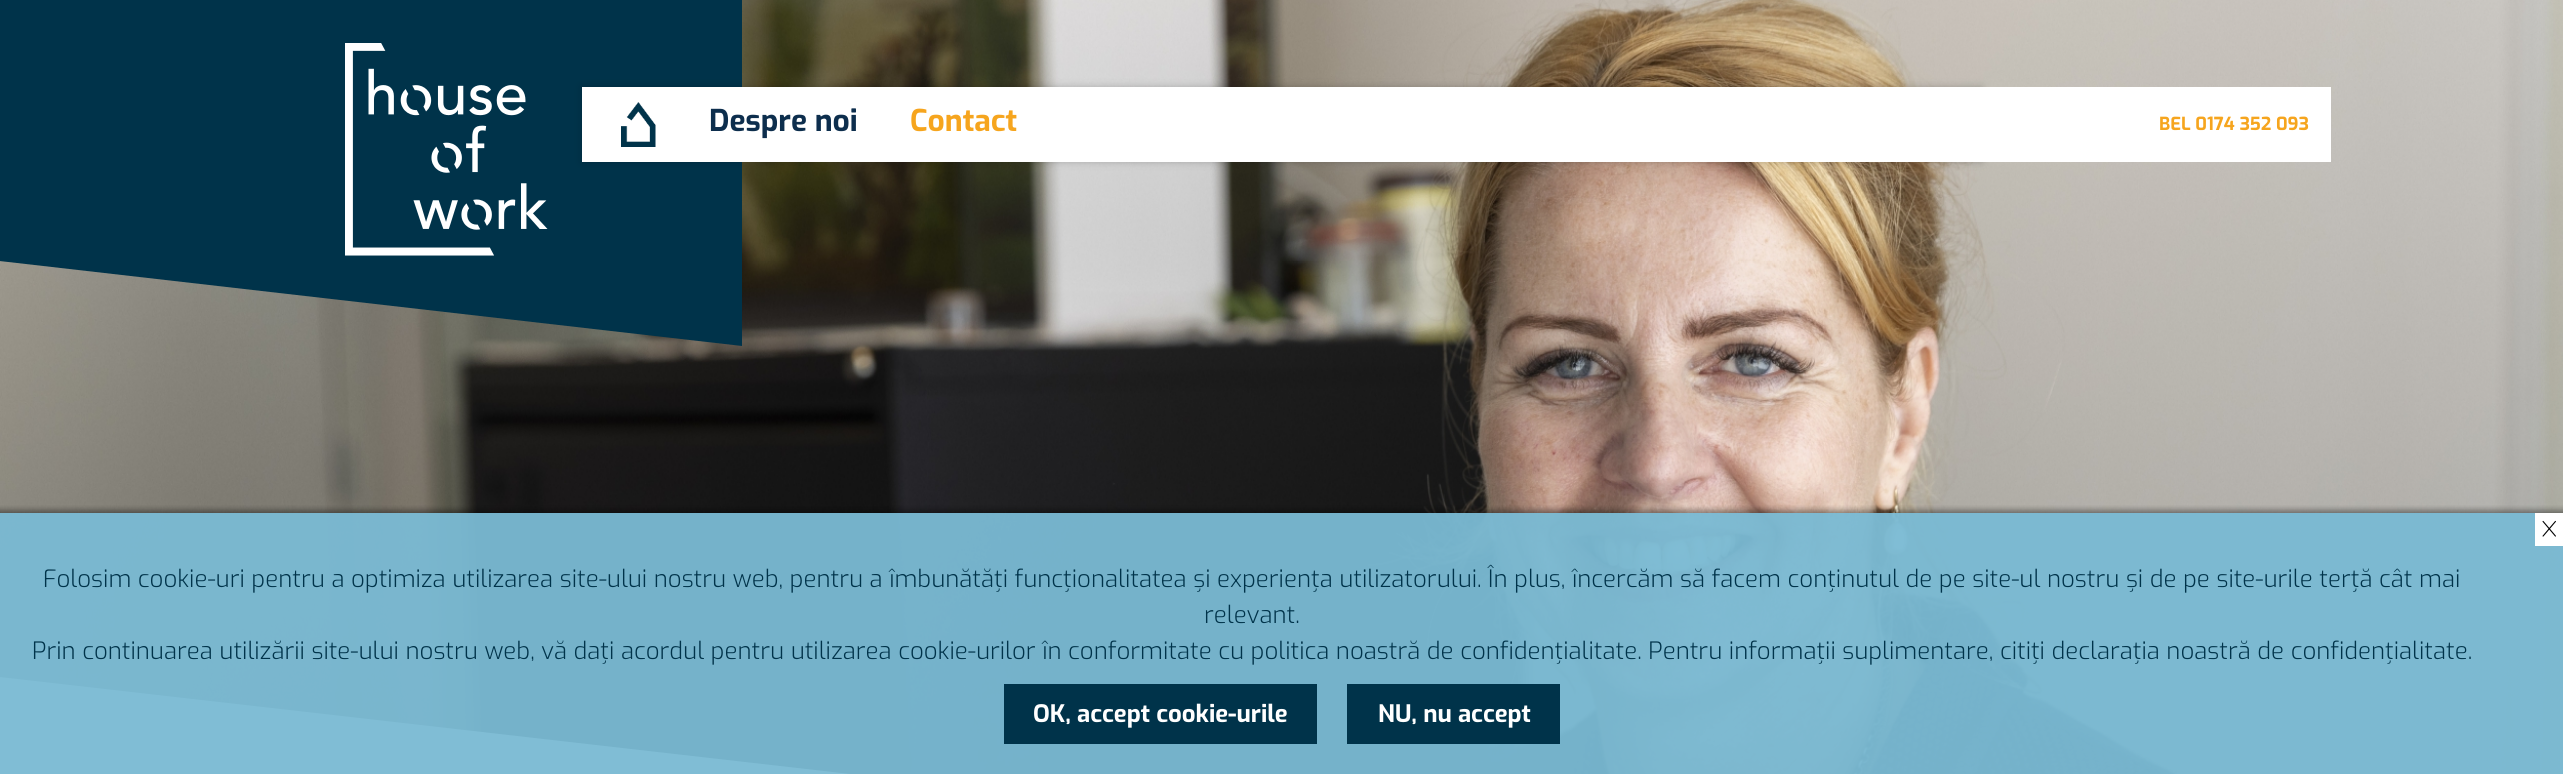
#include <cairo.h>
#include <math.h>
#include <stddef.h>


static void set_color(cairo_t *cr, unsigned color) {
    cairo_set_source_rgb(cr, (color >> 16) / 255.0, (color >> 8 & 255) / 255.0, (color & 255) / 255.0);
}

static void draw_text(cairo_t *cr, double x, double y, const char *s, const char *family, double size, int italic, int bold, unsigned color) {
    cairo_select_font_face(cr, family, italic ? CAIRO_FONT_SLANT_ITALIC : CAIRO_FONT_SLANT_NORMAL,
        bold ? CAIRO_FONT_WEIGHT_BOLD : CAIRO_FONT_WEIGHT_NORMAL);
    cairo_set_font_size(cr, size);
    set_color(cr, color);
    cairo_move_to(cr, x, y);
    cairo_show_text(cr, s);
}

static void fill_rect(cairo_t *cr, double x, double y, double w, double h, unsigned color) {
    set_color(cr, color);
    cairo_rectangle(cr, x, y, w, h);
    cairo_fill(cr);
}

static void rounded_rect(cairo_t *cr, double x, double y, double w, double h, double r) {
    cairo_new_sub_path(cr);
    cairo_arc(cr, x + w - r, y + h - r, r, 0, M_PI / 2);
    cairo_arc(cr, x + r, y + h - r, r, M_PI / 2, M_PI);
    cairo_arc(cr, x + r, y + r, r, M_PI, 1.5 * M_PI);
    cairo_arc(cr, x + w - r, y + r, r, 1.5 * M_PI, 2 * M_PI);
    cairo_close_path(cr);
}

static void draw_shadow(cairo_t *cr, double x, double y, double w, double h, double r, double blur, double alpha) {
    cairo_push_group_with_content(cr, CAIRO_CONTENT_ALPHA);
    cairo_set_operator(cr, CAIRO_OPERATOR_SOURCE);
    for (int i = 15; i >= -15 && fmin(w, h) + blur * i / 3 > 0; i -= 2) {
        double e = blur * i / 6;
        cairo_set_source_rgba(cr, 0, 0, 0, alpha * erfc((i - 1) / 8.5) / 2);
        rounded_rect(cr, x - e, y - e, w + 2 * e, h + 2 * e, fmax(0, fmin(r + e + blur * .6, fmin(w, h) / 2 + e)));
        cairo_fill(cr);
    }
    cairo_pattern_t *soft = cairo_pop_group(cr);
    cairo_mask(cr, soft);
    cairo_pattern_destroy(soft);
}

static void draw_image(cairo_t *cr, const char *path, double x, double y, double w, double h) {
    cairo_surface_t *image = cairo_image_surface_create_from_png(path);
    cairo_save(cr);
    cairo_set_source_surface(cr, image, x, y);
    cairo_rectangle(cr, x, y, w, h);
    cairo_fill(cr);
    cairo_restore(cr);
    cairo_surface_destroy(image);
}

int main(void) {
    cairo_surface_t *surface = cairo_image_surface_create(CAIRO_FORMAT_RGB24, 2563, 774);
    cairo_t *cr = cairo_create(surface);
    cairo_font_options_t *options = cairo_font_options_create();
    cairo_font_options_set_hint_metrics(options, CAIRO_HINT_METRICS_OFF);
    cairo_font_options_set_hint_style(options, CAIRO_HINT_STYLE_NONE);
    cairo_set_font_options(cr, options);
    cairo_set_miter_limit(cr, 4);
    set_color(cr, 0xFFFFFF);
    cairo_paint(cr);
    draw_image(cr, "assets/img1.png", 0, 0, 2563, 774);
    set_color(cr, 0xFFFFFF);
    cairo_new_path(cr);
    cairo_move_to(cr, -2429, 400);
    cairo_line_to(cr, 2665, 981);
    cairo_line_to(cr, 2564, 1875);
    cairo_line_to(cr, -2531, 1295);
    cairo_close_path(cr);
    cairo_fill(cr);
    set_color(cr, 0x00334A);
    cairo_new_path(cr);
    cairo_move_to(cr, -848, -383);
    cairo_line_to(cr, 742, -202);
    cairo_line_to(cr, 742, 346);
    cairo_line_to(cr, -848, 164);
    cairo_close_path(cr);
    cairo_fill(cr);
    draw_image(cr, "assets/img2.png", 345, 43, 203, 213);
    set_color(cr, 0x000000);
    draw_shadow(cr, 582, 87, 1400, 75, 0, 4, 0.2);
    fill_rect(cr, 582, 87, 1749, 75, 0xFFFFFF);
    draw_image(cr, "assets/img3.png", 621, 102, 35, 45);
    draw_text(cr, 709, 131, "Despre noi", "Exo", 30, 0, 1, 0x0D2E4D);
    draw_text(cr, 910, 131, "Contact", "Exo", 30, 0, 1, 0xF6A51E);
    draw_text(cr, 2159, 130, "BEL 0174 352 093", "Exo", 18, 0, 1, 0xF6A51E);
    cairo_save(cr);
    cairo_rectangle(cr, 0, 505, 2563, 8);
    cairo_clip(cr);
    set_color(cr, 0x000000);
    draw_shadow(cr, -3, 510, 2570, 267, 0, 3, 0.4);
    cairo_restore(cr);
    cairo_set_source_rgba(cr, 0.478, 0.729, 0.827, 0.95);
    cairo_rectangle(cr, 0, 513, 2563, 261);
    cairo_fill(cr);
    fill_rect(cr, 2535, 513, 28, 33, 0xFFFFFF);
    draw_image(cr, "assets/img4.png", 2542, 520, 14, 17);
    draw_text(cr, 43, 587, "Folosim cookie-uri pentru a optimiza utilizarea site-ului nostru web, pentru a îmbunătăți funcționalitatea și experiența utilizatorului. În plus, încercăm să facem conținutul de pe site-ul nostru și de pe site-urile terță cât mai", "Exo Light", 24, 0, 0, 0x00334A);
    draw_text(cr, 1204, 623, "relevant.", "Exo Light", 24, 0, 0, 0x00334A);
    draw_text(cr, 32, 659, "Prin continuarea utilizării site-ului nostru web, vă dați acordul pentru utilizarea cookie-urilor în conformitate cu politica noastră de confidențialitate. Pentru informații suplimentare, citiți declarația noastră de confidențialitate.", "Exo Light", 24, 0, 0, 0x00334A);
    fill_rect(cr, 1004, 684, 313, 60, 0x00334A);
    draw_text(cr, 1033, 722, "OK, accept cookie-urile", "Exo", 24, 0, 1, 0xFFFFFF);
    fill_rect(cr, 1347, 684, 213, 60, 0x00334A);
    draw_text(cr, 1378, 722, "NU, nu accept", "Exo", 24, 0, 1, 0xFFFFFF);
    cairo_surface_write_to_png(surface, "output.png");
    cairo_font_options_destroy(options);
    cairo_destroy(cr);
    cairo_surface_destroy(surface);
    return 0;
}
